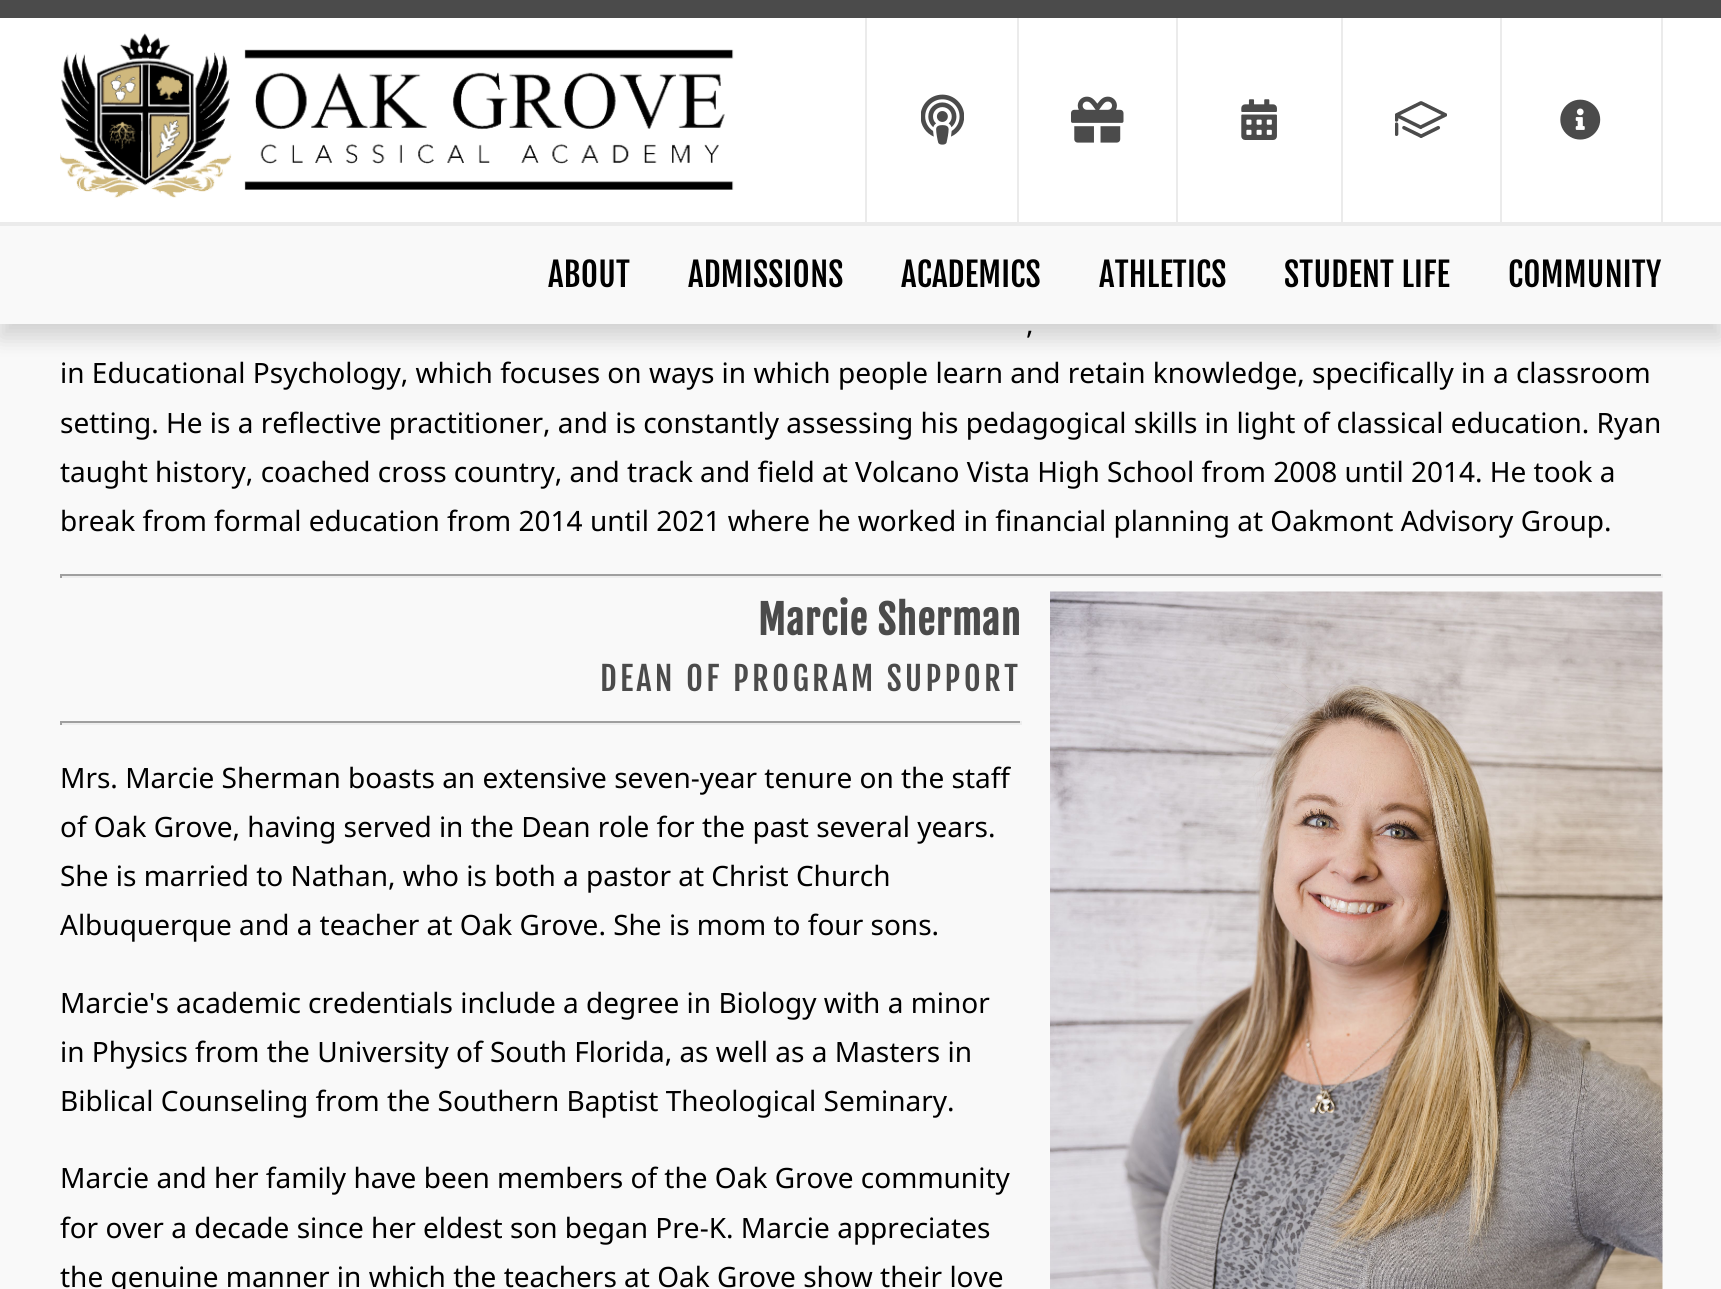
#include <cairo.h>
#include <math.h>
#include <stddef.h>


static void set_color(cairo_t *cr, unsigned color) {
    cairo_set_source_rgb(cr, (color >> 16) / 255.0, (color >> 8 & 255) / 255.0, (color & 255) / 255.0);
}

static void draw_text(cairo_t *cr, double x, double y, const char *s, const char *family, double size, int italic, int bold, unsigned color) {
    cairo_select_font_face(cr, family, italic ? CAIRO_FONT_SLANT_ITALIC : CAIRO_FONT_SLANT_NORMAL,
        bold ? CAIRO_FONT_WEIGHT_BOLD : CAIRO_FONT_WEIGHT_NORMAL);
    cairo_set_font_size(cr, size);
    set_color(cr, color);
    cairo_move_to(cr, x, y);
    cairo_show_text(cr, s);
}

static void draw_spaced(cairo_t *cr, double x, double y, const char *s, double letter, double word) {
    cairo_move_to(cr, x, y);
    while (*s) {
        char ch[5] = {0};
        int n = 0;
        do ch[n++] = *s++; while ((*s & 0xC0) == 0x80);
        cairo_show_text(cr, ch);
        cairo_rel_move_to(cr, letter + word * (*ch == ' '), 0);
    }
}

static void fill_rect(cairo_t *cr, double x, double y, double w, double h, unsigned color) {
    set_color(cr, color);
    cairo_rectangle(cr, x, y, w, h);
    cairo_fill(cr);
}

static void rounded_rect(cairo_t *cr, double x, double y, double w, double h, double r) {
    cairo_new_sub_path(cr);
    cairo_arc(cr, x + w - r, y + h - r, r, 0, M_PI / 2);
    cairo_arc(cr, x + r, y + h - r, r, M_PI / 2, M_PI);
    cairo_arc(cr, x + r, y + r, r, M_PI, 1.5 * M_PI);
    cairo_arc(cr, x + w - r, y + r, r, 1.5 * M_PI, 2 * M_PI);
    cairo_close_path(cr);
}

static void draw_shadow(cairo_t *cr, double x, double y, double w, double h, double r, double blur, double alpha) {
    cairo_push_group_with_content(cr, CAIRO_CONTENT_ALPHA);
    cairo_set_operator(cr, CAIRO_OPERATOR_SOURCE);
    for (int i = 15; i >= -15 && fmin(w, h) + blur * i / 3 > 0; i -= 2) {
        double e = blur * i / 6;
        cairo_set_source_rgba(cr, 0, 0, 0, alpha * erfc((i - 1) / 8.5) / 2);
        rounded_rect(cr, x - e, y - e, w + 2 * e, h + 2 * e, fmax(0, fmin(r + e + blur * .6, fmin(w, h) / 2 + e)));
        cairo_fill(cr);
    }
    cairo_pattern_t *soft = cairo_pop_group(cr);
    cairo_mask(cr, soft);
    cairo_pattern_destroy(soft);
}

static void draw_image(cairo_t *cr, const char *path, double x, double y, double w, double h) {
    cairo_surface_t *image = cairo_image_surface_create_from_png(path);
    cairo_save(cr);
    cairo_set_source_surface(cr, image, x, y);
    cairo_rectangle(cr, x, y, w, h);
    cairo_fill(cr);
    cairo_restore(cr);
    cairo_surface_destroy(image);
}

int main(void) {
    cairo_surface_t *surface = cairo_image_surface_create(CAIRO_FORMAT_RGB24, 1721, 1289);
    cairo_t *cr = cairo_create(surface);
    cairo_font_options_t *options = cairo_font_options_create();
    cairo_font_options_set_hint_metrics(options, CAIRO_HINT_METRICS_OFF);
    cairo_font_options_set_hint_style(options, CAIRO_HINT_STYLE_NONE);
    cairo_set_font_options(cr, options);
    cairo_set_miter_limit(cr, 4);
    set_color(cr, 0xF9F9F9);
    cairo_paint(cr);
    set_color(cr, 0x000000);
    draw_shadow(cr, 0, 14, 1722, 324, 0, 10.5, 0.16);
    fill_rect(cr, 0, 0, 1721, 18, 0x4B4B4B);
    fill_rect(cr, 0, 18, 1721, 204, 0xFFFFFF);
    fill_rect(cr, 0, 222, 1721, 4, 0xEBEBEB);
    draw_image(cr, "assets/img1.png", 60, 33, 674, 165);
    fill_rect(cr, 1017, 18, 2, 204, 0xEBEBEB);
    fill_rect(cr, 865, 18, 2, 204, 0xEBEBEB);
    draw_image(cr, "assets/img2.png", 921, 94, 43, 51);
    fill_rect(cr, 1176, 18, 2, 204, 0xEBEBEB);
    draw_image(cr, "assets/img3.png", 1071, 96, 53, 47);
    fill_rect(cr, 1341, 18, 2, 204, 0xEBEBEB);
    draw_image(cr, "assets/img4.png", 1241, 99, 36, 41);
    fill_rect(cr, 1500, 18, 2, 204, 0xEBEBEB);
    draw_image(cr, "assets/img5.png", 1395, 101, 52, 37);
    fill_rect(cr, 1661, 18, 2, 204, 0xEBEBEB);
    draw_image(cr, "assets/img6.png", 1560, 99, 41, 41);
    fill_rect(cr, 0, 226, 1721, 98, 0xF9F9F9);
    cairo_select_font_face(cr, "Fjalla One", CAIRO_FONT_SLANT_NORMAL, CAIRO_FONT_WEIGHT_NORMAL);
    cairo_set_font_size(cr, 33);
    set_color(cr, 0x000000);
    draw_spaced(cr, 548, 287, "ABOUT", 0.25, 0);
    draw_spaced(cr, 688, 287, "ADMISSIONS", 0.25, 0);
    draw_spaced(cr, 901, 287, "ACADEMICS", 0.25, 0);
    draw_spaced(cr, 1099, 287, "ATHLETICS", 0.25, 0);
    draw_spaced(cr, 1284, 287, "STUDENT LIFE", 0.25, 0);
    draw_spaced(cr, 1508, 287, "COMMUNITY", 0.25, 0);
    draw_text(cr, 1026, 334, ",", "Noto Sans", 28, 0, 0, 0x000000);
    draw_text(cr, 60, 383, "in Educational Psychology, which focuses on ways in which people learn and retain knowledge, specifically in a classroom", "Noto Sans", 28, 0, 0, 0x000000);
    draw_text(cr, 60, 433, "setting. He is a reflective practitioner, and is constantly assessing his pedagogical skills in light of classical education. Ryan", "Noto Sans", 28, 0, 0, 0x000000);
    draw_text(cr, 60, 482, "taught history, coached cross country, and track and field at Volcano Vista High School from 2008 until 2014. He took a", "Noto Sans", 28, 0, 0, 0x000000);
    draw_text(cr, 60, 531, "break from formal education from 2014 until 2021 where he worked in financial planning at Oakmont Advisory Group.", "Noto Sans", 28, 0, 0, 0x000000);
    fill_rect(cr, 60, 574, 1603, 2, 0x9F9F9F);
    fill_rect(cr, 1661, 574, 2, 4, 0xEEEEEE);
    fill_rect(cr, 60, 576, 1603, 2, 0xEEEEEE);
    fill_rect(cr, 60, 574, 2, 4, 0x9F9F9F);
    cairo_select_font_face(cr, "Fjalla One", CAIRO_FONT_SLANT_NORMAL, CAIRO_FONT_WEIGHT_BOLD);
    cairo_set_font_size(cr, 39.5);
    set_color(cr, 0x4B4B4B);
    draw_spaced(cr, 758, 635, "Marcie Sherman", 1, 0);
    draw_image(cr, "assets/img7.png", 1050, 591, 613, 698);
    cairo_select_font_face(cr, "Fjalla One", CAIRO_FONT_SLANT_NORMAL, CAIRO_FONT_WEIGHT_NORMAL);
    cairo_set_font_size(cr, 32.6);
    draw_spaced(cr, 600, 691, "DEAN OF PROGRAM SUPPORT", 3.25, 0);
    fill_rect(cr, 60, 721, 962, 2, 0x9F9F9F);
    fill_rect(cr, 1020, 721, 2, 4, 0xEEEEEE);
    fill_rect(cr, 60, 723, 962, 2, 0xEEEEEE);
    fill_rect(cr, 60, 721, 2, 4, 0x9F9F9F);
    draw_text(cr, 60, 788, "Mrs. Marcie Sherman boasts an extensive seven-year tenure on the staff", "Noto Sans", 28, 0, 0, 0x000000);
    draw_text(cr, 60, 837, "of Oak Grove, having served in the Dean role for the past several years.", "Noto Sans", 28, 0, 0, 0x000000);
    draw_text(cr, 60, 886, "She is married to Nathan, who is both a pastor at Christ Church", "Noto Sans", 28, 0, 0, 0x000000);
    draw_text(cr, 60, 935, "Albuquerque and a teacher at Oak Grove. She is mom to four sons.", "Noto Sans", 28, 0, 0, 0x000000);
    draw_text(cr, 60, 1013, "Marcie's academic credentials include a degree in Biology with a minor", "Noto Sans", 28, 0, 0, 0x000000);
    draw_text(cr, 60, 1062, "in Physics from the University of South Florida, as well as a Masters in", "Noto Sans", 28, 0, 0, 0x000000);
    draw_text(cr, 60, 1111, "Biblical Counseling from the Southern Baptist Theological Seminary.", "Noto Sans", 28, 0, 0, 0x000000);
    draw_text(cr, 60, 1188, "Marcie and her family have been members of the Oak Grove community", "Noto Sans", 28, 0, 0, 0x000000);
    draw_text(cr, 60, 1238, "for over a decade since her eldest son began Pre-K. Marcie appreciates", "Noto Sans", 28, 0, 0, 0x000000);
    draw_text(cr, 60, 1287, "the genuine manner in which the teachers at Oak Grove show their love", "Noto Sans", 28, 0, 0, 0x000000);
    cairo_surface_write_to_png(surface, "output.png");
    cairo_font_options_destroy(options);
    cairo_destroy(cr);
    cairo_surface_destroy(surface);
    return 0;
}
